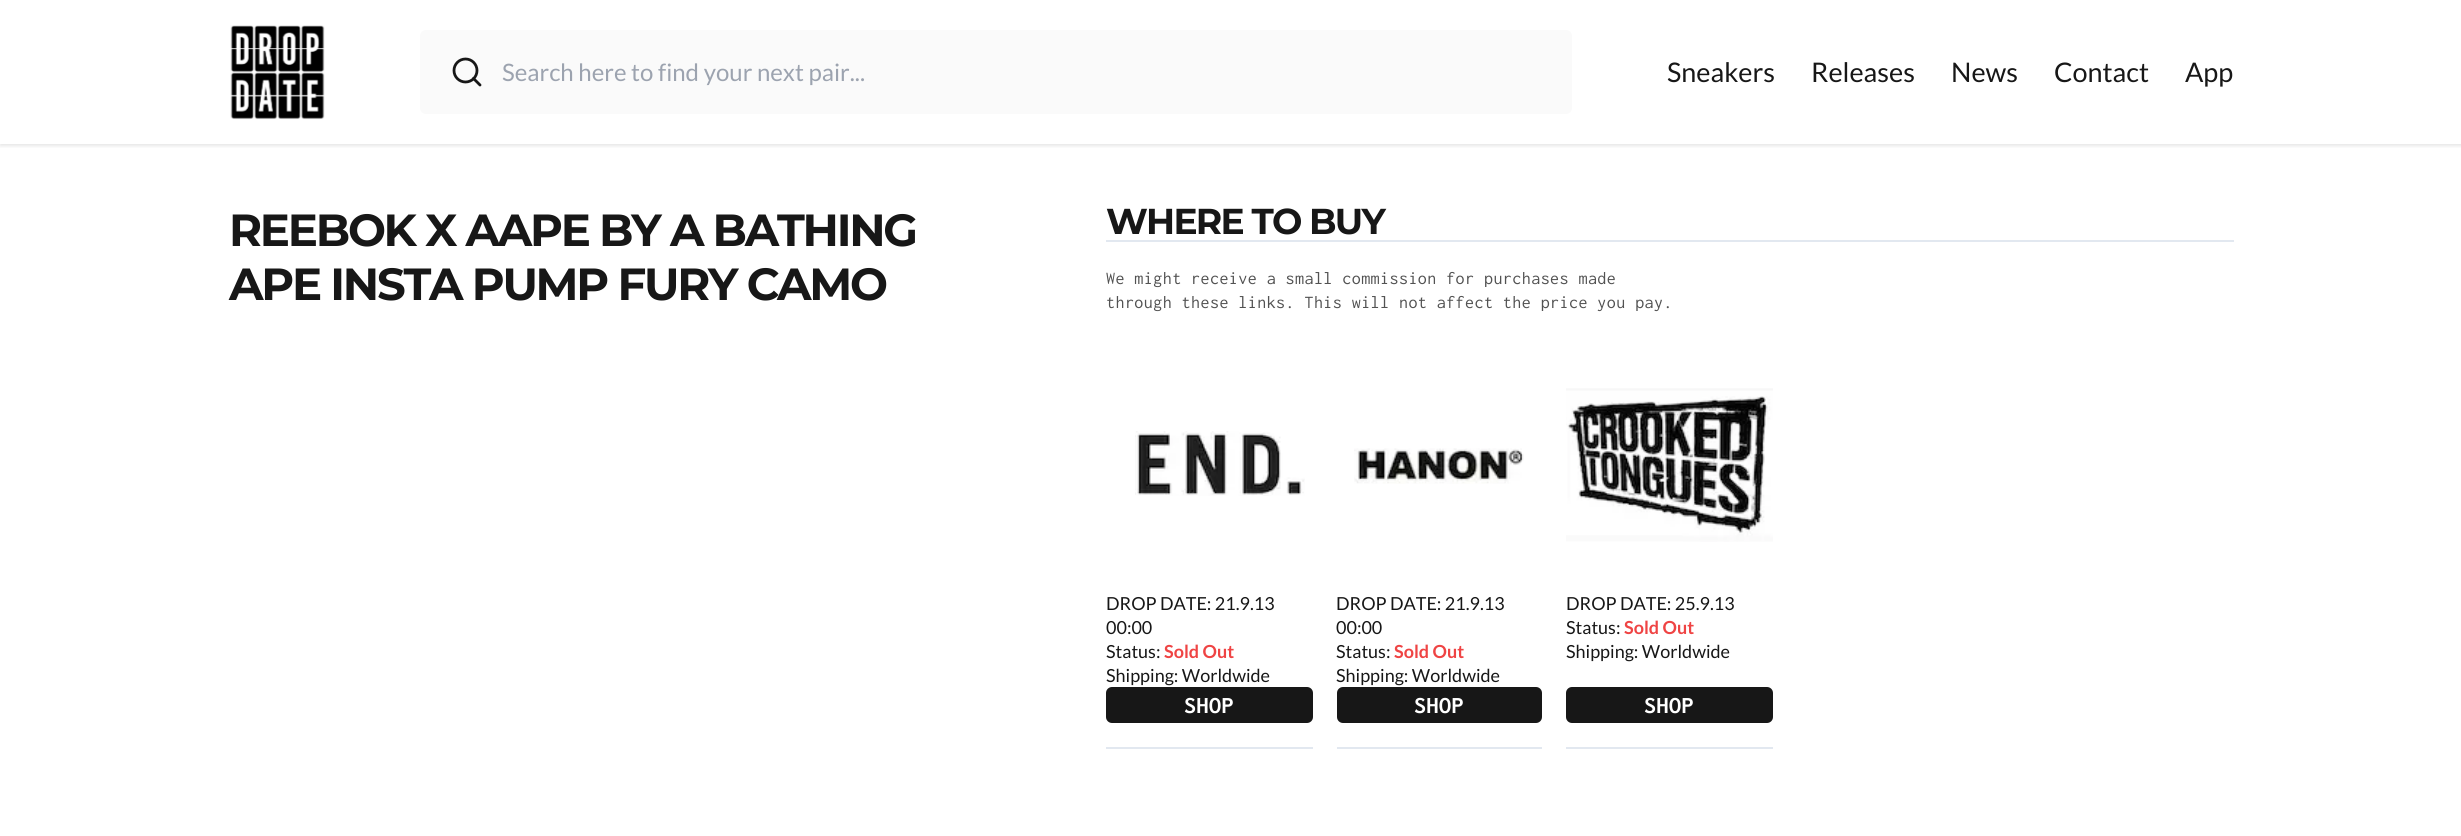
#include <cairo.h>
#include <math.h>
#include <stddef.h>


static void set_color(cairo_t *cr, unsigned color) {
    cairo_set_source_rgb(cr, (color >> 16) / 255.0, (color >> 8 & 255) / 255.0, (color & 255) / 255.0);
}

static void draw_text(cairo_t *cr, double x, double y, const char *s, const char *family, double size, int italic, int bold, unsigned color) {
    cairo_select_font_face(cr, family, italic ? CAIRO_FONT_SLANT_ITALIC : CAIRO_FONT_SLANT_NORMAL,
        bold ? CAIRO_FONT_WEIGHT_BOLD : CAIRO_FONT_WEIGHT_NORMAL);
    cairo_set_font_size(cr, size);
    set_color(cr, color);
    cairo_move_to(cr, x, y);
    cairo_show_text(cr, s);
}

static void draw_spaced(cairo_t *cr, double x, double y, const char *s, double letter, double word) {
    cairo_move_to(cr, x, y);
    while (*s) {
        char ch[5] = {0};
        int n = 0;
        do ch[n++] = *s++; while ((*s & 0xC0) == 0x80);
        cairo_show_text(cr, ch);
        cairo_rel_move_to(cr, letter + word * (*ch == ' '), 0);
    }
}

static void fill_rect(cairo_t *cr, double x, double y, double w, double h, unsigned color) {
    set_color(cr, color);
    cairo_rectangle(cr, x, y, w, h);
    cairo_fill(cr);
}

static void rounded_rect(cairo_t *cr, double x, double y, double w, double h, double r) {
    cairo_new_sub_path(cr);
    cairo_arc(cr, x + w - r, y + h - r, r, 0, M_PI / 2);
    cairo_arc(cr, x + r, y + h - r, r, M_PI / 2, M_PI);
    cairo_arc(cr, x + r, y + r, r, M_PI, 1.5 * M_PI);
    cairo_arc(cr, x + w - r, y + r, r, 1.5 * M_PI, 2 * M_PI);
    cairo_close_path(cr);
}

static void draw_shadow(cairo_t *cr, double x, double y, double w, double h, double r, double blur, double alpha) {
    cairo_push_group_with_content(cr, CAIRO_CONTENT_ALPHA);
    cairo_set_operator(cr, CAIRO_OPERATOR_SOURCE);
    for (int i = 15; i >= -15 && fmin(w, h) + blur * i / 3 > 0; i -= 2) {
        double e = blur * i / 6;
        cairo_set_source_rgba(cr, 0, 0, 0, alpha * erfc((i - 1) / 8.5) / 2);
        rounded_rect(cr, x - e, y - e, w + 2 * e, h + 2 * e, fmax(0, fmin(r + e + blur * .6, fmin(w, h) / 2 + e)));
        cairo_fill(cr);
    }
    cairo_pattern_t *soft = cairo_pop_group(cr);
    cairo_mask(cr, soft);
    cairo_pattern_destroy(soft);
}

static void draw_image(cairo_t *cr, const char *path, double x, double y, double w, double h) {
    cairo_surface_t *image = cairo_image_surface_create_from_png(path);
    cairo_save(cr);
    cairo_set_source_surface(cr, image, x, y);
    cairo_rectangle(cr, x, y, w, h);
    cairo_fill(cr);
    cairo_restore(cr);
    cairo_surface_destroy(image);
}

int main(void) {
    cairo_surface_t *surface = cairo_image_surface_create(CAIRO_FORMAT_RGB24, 2461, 836);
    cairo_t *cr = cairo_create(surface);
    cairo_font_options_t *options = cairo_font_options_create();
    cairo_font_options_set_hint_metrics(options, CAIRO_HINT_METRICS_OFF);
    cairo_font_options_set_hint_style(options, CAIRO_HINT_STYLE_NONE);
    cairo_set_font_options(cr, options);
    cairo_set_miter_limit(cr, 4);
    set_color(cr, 0xFFFFFF);
    cairo_paint(cr);
    cairo_save(cr);
    cairo_rectangle(cr, 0, 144, 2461, 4);
    cairo_clip(cr);
    set_color(cr, 0x000000);
    draw_shadow(cr, 0, 2, 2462, 144, 0, 2, 0.1);
    cairo_restore(cr);
    draw_image(cr, "assets/img1.png", 230, 25, 95, 95);
    set_color(cr, 0xFAFAFA);
    rounded_rect(cr, 420, 30, 1152, 84, 6);
    cairo_fill(cr);
    cairo_arc(cr, 465.5, 70.5, 11.5, 0, 2 * M_PI);
    set_color(cr, 0x171717);
    cairo_set_line_width(cr, 2.8);
    cairo_stroke(cr);
    cairo_new_path(cr);
    cairo_move_to(cr, 480, 85);
    cairo_line_to(cr, 473.5, 78.5);
    cairo_set_line_cap(cr, CAIRO_LINE_CAP_ROUND);
    cairo_set_line_join(cr, CAIRO_LINE_JOIN_ROUND);
    cairo_stroke(cr);
    draw_text(cr, 502, 81, "Search here to find your next pair...", "Lato", 24, 0, 0, 0x9CA3AF);
    draw_text(cr, 1667, 82, "Sneakers", "Lato", 27, 0, 0, 0x171717);
    draw_text(cr, 1811, 82, "Releases", "Lato", 27, 0, 0, 0x171717);
    draw_text(cr, 1951, 82, "News", "Lato", 27, 0, 0, 0x171717);
    draw_text(cr, 2054, 82, "Contact", "Lato", 27, 0, 0, 0x171717);
    draw_text(cr, 2185, 82, "App", "Lato", 27, 0, 0, 0x171717);
    cairo_select_font_face(cr, "Montserrat", CAIRO_FONT_SLANT_NORMAL, CAIRO_FONT_WEIGHT_BOLD);
    cairo_set_font_size(cr, 45);
    draw_spaced(cr, 229, 246, "REEBOK X AAPE BY A BATHING", -2.25, 0);
    draw_spaced(cr, 229, 300, "APE INSTA PUMP FURY CAMO", -2.25, 0);
    fill_rect(cr, 1106, 240, 1128, 2, 0xE2E8F0);
    cairo_set_font_size(cr, 36);
    set_color(cr, 0x171717);
    draw_spaced(cr, 1106, 234, "WHERE TO BUY", -1.75, 0);
    cairo_select_font_face(cr, "Inconsolata", CAIRO_FONT_SLANT_NORMAL, CAIRO_FONT_WEIGHT_NORMAL);
    cairo_set_font_size(cr, 18);
    set_color(cr, 0x525252);
    draw_spaced(cr, 1106, 284, "We might receive a small commission for purchases made", 0.45, 0);
    draw_spaced(cr, 1106, 308, "through these links. This will not affect the price you pay.", 0.45, 0);
    fill_rect(cr, 1106, 747, 207, 2, 0xE2E8F0);
    draw_image(cr, "assets/img2.png", 1135, 431, 170, 65);
    draw_text(cr, 1106, 610, "DROP DATE: 21.9.13", "Lato", 18, 0, 0, 0x171717);
    draw_text(cr, 1106, 634, "00:00", "Lato", 18, 0, 0, 0x171717);
    draw_text(cr, 1106, 658, "Status:", "Lato", 18, 0, 0, 0x171717);
    draw_text(cr, 1164, 658, "Sold Out", "Lato", 18, 0, 1, 0xEF4444);
    draw_text(cr, 1106, 682, "Shipping: Worldwide", "Lato", 18, 0, 0, 0x171717);
    rounded_rect(cr, 1106, 687, 207, 36, 6);
    cairo_fill(cr);
    cairo_select_font_face(cr, "Inconsolata", CAIRO_FONT_SLANT_NORMAL, CAIRO_FONT_WEIGHT_BOLD);
    cairo_set_font_size(cr, 24);
    set_color(cr, 0xFFFFFF);
    draw_spaced(cr, 1184, 713, "SHOP", 0.5, 0);
    fill_rect(cr, 1337, 747, 205, 2, 0xE2E8F0);
    draw_image(cr, "assets/img3.png", 1354, 448, 170, 36);
    draw_text(cr, 1336, 610, "DROP DATE: 21.9.13", "Lato", 18, 0, 0, 0x171717);
    draw_text(cr, 1336, 634, "00:00", "Lato", 18, 0, 0, 0x171717);
    draw_text(cr, 1336, 658, "Status:", "Lato", 18, 0, 0, 0x171717);
    draw_text(cr, 1394, 658, "Sold Out", "Lato", 18, 0, 1, 0xEF4444);
    draw_text(cr, 1336, 682, "Shipping: Worldwide", "Lato", 18, 0, 0, 0x171717);
    rounded_rect(cr, 1337, 687, 205, 36, 6);
    cairo_fill(cr);
    cairo_select_font_face(cr, "Inconsolata", CAIRO_FONT_SLANT_NORMAL, CAIRO_FONT_WEIGHT_BOLD);
    cairo_set_font_size(cr, 24);
    set_color(cr, 0xFFFFFF);
    draw_spaced(cr, 1414, 713, "SHOP", 0.5, 0);
    fill_rect(cr, 1566, 747, 207, 2, 0xE2E8F0);
    draw_image(cr, "assets/img4.png", 1566, 388, 207, 154);
    draw_text(cr, 1566, 610, "DROP DATE: 25.9.13", "Lato", 18, 0, 0, 0x171717);
    draw_text(cr, 1566, 634, "Status:", "Lato", 18, 0, 0, 0x171717);
    draw_text(cr, 1624, 634, "Sold Out", "Lato", 18, 0, 1, 0xEF4444);
    draw_text(cr, 1566, 658, "Shipping: Worldwide", "Lato", 18, 0, 0, 0x171717);
    rounded_rect(cr, 1566, 687, 207, 36, 6);
    cairo_fill(cr);
    cairo_select_font_face(cr, "Inconsolata", CAIRO_FONT_SLANT_NORMAL, CAIRO_FONT_WEIGHT_BOLD);
    cairo_set_font_size(cr, 24);
    set_color(cr, 0xFFFFFF);
    draw_spaced(cr, 1644, 713, "SHOP", 0.5, 0);
    cairo_surface_write_to_png(surface, "output.png");
    cairo_font_options_destroy(options);
    cairo_destroy(cr);
    cairo_surface_destroy(surface);
    return 0;
}
